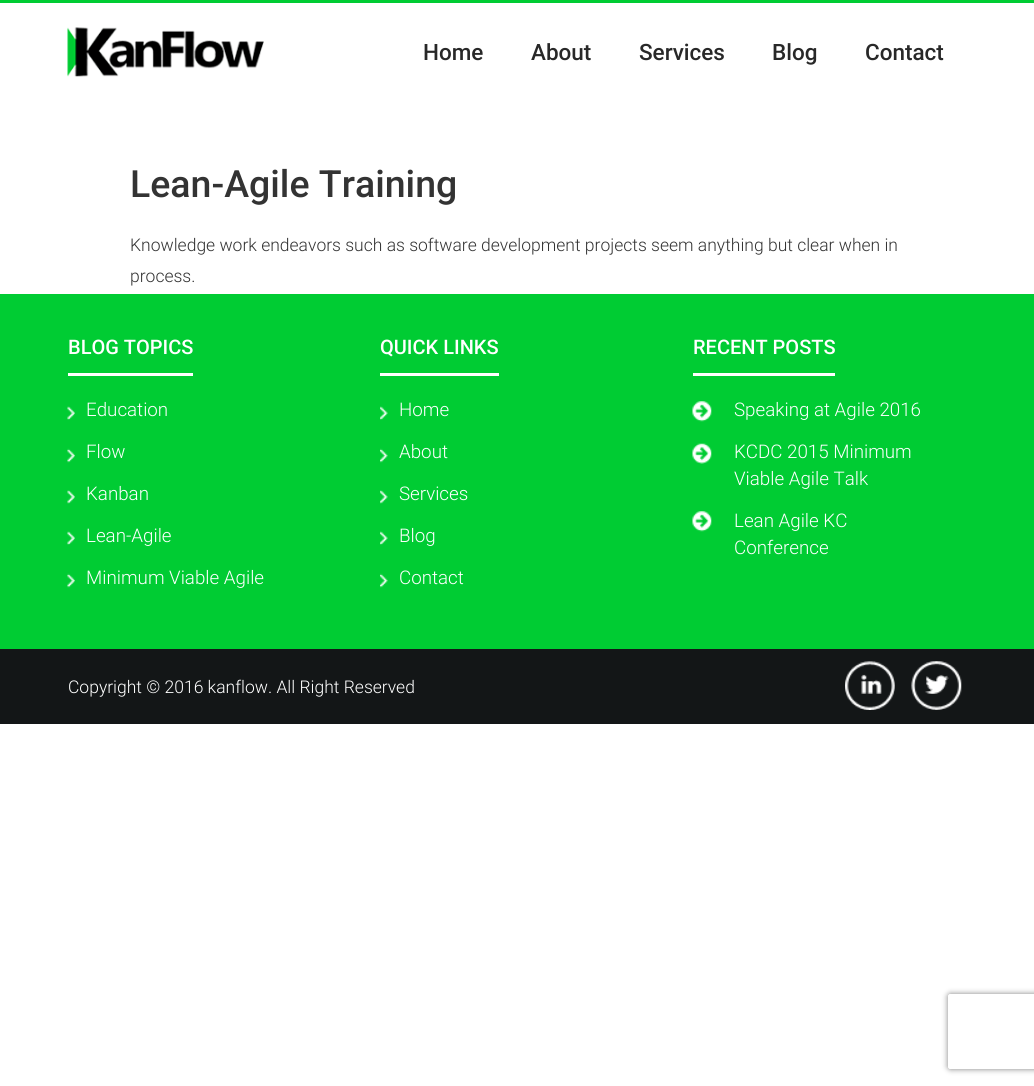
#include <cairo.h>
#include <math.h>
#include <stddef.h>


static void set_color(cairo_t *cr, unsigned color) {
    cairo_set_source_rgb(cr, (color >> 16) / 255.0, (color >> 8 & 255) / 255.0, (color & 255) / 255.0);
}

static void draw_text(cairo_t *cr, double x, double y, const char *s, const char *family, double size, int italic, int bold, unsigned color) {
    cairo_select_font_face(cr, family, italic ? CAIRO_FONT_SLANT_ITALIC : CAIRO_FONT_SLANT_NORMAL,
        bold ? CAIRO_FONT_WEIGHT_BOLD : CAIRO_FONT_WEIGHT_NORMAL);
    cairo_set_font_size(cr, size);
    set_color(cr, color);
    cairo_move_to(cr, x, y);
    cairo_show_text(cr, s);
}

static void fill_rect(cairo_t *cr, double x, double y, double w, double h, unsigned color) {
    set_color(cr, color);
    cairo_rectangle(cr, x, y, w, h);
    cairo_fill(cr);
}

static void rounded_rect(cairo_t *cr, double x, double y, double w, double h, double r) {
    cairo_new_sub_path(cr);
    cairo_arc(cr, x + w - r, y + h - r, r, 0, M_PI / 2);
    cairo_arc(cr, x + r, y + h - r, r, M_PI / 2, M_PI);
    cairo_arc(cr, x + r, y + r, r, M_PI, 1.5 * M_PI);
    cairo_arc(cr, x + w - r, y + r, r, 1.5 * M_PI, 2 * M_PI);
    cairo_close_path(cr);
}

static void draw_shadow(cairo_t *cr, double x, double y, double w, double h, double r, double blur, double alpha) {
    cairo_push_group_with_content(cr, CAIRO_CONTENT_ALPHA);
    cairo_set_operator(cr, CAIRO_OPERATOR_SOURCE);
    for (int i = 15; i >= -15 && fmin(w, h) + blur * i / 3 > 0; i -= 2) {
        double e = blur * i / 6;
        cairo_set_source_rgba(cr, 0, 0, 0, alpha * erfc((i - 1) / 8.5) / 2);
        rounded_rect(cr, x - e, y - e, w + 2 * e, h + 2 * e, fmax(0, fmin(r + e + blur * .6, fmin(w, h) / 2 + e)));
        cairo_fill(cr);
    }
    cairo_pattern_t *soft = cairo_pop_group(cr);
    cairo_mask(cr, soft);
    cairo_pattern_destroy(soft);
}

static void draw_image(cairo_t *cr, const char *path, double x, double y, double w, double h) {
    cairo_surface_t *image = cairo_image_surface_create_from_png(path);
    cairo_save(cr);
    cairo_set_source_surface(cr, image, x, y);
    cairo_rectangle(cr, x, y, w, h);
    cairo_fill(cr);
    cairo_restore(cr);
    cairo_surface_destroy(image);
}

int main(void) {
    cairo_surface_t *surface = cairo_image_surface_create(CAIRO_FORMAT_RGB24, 1034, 1086);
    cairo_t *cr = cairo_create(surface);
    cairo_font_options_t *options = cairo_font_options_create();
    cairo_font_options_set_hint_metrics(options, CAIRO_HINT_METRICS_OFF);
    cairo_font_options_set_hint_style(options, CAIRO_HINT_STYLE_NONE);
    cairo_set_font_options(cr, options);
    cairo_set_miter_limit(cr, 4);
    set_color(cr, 0xFFFFFF);
    cairo_paint(cr);
    fill_rect(cr, 0, 0, 1034, 3, 0x00CC33);
    draw_image(cr, "assets/img1.png", 67, 27, 197, 50);
    draw_text(cr, 423, 60, "Home", "Roboto Medium", 22.5, 0, 0, 0x282828);
    draw_text(cr, 531, 60, "About", "Roboto Medium", 22.5, 0, 0, 0x282828);
    draw_text(cr, 639, 60, "Services", "Roboto Medium", 22.5, 0, 0, 0x282828);
    draw_text(cr, 772, 60, "Blog", "Roboto Medium", 22.5, 0, 0, 0x282828);
    draw_text(cr, 865, 60, "Contact", "Roboto Medium", 22.5, 0, 0, 0x282828);
    draw_text(cr, 130, 197, "Lean-Agile Training", "Roboto Medium", 37.5, 0, 0, 0x333333);
    draw_text(cr, 130, 251, "Knowledge work endeavors such as software development projects seem anything but clear when in", "Roboto Light", 17.5, 0, 0, 0x333333);
    draw_text(cr, 130, 282, "process.", "Roboto Light", 17.5, 0, 0, 0x333333);
    fill_rect(cr, 0, 294, 1034, 355, 0x00CC33);
    draw_text(cr, 68, 354, "BLOG TOPICS", "Roboto Medium", 20, 0, 0, 0xFFFFFF);
    fill_rect(cr, 68, 373, 125, 3, 0xFFFFFF);
    draw_image(cr, "assets/img2.png", 67, 406, 8, 14);
    draw_text(cr, 86, 416, "Education", "Roboto Light", 18.75, 0, 0, 0xFFFFFF);
    draw_image(cr, "assets/img3.png", 67, 448, 8, 15);
    draw_text(cr, 86, 458, "Flow", "Roboto Light", 18.75, 0, 0, 0xFFFFFF);
    draw_image(cr, "assets/img4.png", 67, 490, 8, 14);
    draw_text(cr, 86, 500, "Kanban", "Roboto Light", 18.75, 0, 0, 0xFFFFFF);
    draw_image(cr, "assets/img2.png", 67, 531, 8, 14);
    draw_text(cr, 86, 542, "Lean-Agile", "Roboto Light", 18.75, 0, 0, 0xFFFFFF);
    draw_image(cr, "assets/img3.png", 67, 573, 8, 15);
    draw_text(cr, 86, 584, "Minimum Viable Agile", "Roboto Light", 18.75, 0, 0, 0xFFFFFF);
    draw_text(cr, 380, 354, "QUICK LINKS", "Roboto Medium", 20, 0, 0, 0xFFFFFF);
    fill_rect(cr, 380, 373, 119, 3, 0xFFFFFF);
    draw_image(cr, "assets/img5.png", 380, 406, 8, 14);
    draw_text(cr, 399, 416, "Home", "Roboto Light", 18.75, 0, 0, 0xFFFFFF);
    draw_image(cr, "assets/img6.png", 380, 448, 8, 15);
    draw_text(cr, 399, 458, "About", "Roboto Light", 18.75, 0, 0, 0xFFFFFF);
    draw_image(cr, "assets/img7.png", 380, 490, 8, 14);
    draw_text(cr, 399, 500, "Services", "Roboto Light", 18.75, 0, 0, 0xFFFFFF);
    draw_image(cr, "assets/img5.png", 380, 531, 8, 14);
    draw_text(cr, 399, 542, "Blog", "Roboto Light", 18.75, 0, 0, 0xFFFFFF);
    draw_image(cr, "assets/img6.png", 380, 573, 8, 15);
    draw_text(cr, 399, 584, "Contact", "Roboto Light", 18.75, 0, 0, 0xFFFFFF);
    draw_text(cr, 693, 354, "RECENT POSTS", "Roboto Medium", 20, 0, 0, 0xFFFFFF);
    fill_rect(cr, 693, 373, 142, 3, 0xFFFFFF);
    draw_image(cr, "assets/img8.png", 692, 401, 20, 21);
    draw_text(cr, 734, 416, "Speaking at Agile 2016", "Roboto Light", 18.75, 0, 0, 0xFFFFFF);
    draw_image(cr, "assets/img9.png", 692, 443, 20, 21);
    draw_text(cr, 734, 458, "KCDC 2015 Minimum", "Roboto Light", 18.75, 0, 0, 0xFFFFFF);
    draw_text(cr, 734, 485, "Viable Agile Talk", "Roboto Light", 18.75, 0, 0, 0xFFFFFF);
    draw_image(cr, "assets/img8.png", 692, 511, 20, 21);
    draw_text(cr, 734, 527, "Lean Agile KC", "Roboto Light", 18.75, 0, 0, 0xFFFFFF);
    draw_text(cr, 734, 554, "Conference", "Roboto Light", 18.75, 0, 0, 0xFFFFFF);
    fill_rect(cr, 0, 649, 1034, 75, 0x131617);
    draw_text(cr, 68, 693, "Copyright © 2016 kanflow. All Right Reserved", "Roboto Light", 17.5, 0, 0, 0xFFFFFF);
    draw_image(cr, "assets/img10.png", 845, 661, 50, 49);
    draw_image(cr, "assets/img11.png", 911, 661, 51, 49);
    cairo_save(cr);
    cairo_set_fill_rule(cr, CAIRO_FILL_RULE_EVEN_ODD);
    cairo_new_path(cr);
    cairo_move_to(cr, 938, 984);
    cairo_line_to(cr, 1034, 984);
    cairo_line_to(cr, 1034, 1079);
    cairo_line_to(cr, 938, 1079);
    cairo_close_path(cr);
    cairo_move_to(cr, 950.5, 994);
    cairo_line_to(cr, 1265.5, 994);
    cairo_curve_to(cr, 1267, 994, 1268, 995, 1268, 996.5);
    cairo_line_to(cr, 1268, 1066.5);
    cairo_curve_to(cr, 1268, 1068, 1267, 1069, 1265.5, 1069);
    cairo_line_to(cr, 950.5, 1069);
    cairo_curve_to(cr, 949, 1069, 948, 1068, 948, 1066.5);
    cairo_line_to(cr, 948, 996.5);
    cairo_curve_to(cr, 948, 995, 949, 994, 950.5, 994);
    cairo_close_path(cr);
    cairo_clip(cr);
    set_color(cr, 0x808080);
    draw_shadow(cr, 948, 994, 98, 75, 2.5, 3, 1);
    cairo_restore(cr);
    cairo_surface_write_to_png(surface, "output.png");
    cairo_font_options_destroy(options);
    cairo_destroy(cr);
    cairo_surface_destroy(surface);
    return 0;
}
